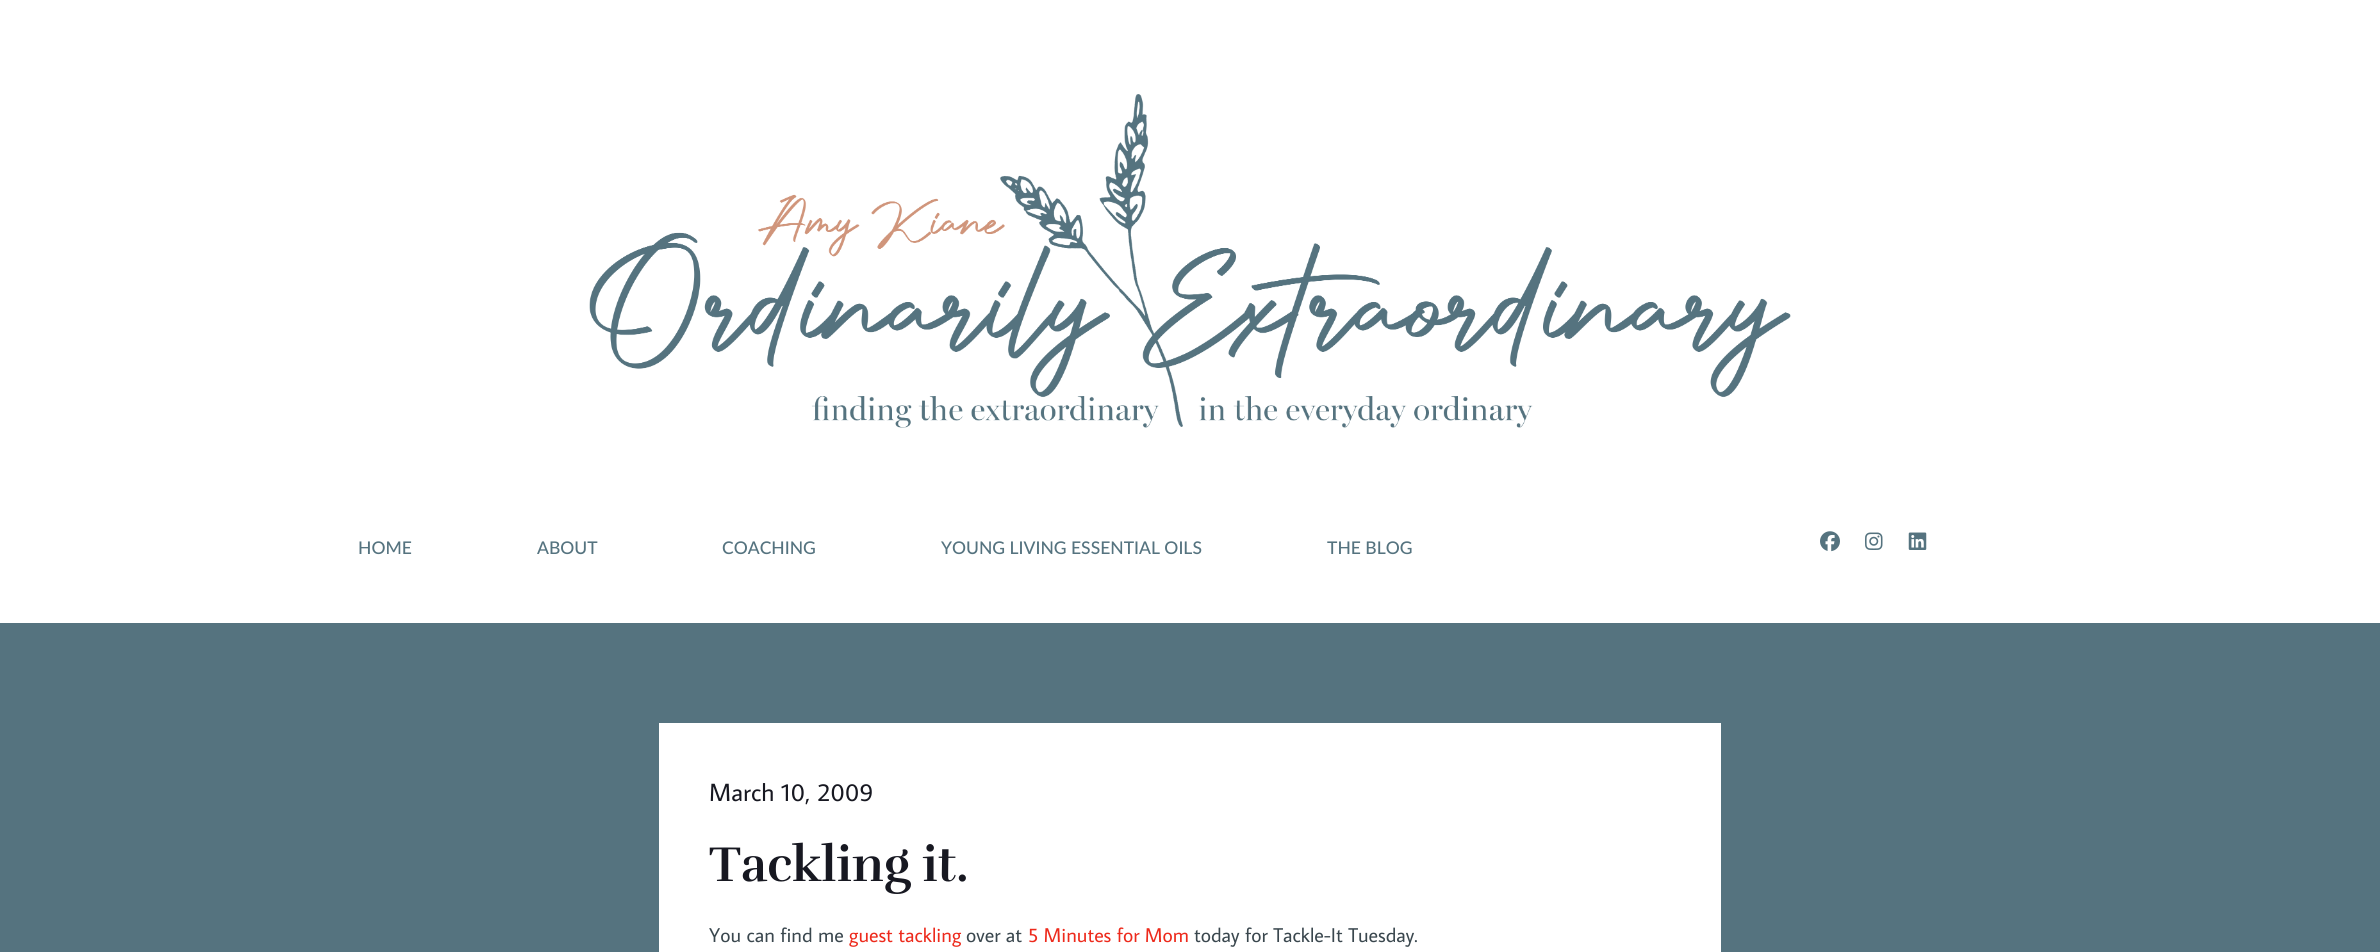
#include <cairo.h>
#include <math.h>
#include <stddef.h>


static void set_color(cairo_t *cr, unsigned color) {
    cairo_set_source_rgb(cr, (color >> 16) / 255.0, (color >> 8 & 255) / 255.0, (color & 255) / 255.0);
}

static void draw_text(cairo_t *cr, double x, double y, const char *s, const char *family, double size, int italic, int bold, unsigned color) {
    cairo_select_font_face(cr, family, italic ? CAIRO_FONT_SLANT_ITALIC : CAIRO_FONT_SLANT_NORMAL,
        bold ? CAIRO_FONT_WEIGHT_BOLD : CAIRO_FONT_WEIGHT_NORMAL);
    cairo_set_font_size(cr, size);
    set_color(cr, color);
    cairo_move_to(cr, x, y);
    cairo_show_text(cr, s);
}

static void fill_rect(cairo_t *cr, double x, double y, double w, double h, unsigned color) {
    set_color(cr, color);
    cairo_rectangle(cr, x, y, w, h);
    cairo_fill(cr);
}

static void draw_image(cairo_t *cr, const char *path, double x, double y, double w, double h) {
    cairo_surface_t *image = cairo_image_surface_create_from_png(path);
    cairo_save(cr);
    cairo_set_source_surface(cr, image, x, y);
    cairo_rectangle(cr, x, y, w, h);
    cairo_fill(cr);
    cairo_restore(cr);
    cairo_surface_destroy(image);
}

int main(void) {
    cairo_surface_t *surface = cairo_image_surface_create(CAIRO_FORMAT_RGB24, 2380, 952);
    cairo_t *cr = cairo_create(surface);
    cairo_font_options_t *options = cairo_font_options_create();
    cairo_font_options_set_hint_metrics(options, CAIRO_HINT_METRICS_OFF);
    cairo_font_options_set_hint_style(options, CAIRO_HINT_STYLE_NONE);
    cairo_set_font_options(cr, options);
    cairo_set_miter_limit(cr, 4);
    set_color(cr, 0xFFFFFF);
    cairo_paint(cr);
    draw_image(cr, "assets/img1.png", 589, 94, 1202, 334);
    draw_text(cr, 358, 554, "HOME", "Lato Medium", 17.5, 0, 0, 0x55737F);
    draw_text(cr, 537, 554, "ABOUT", "Lato Medium", 17.5, 0, 0, 0x55737F);
    draw_text(cr, 722, 554, "COACHING", "Lato Medium", 17.5, 0, 0, 0x55737F);
    draw_text(cr, 941, 554, "YOUNG LIVING ESSENTIAL OILS", "Lato Medium", 17.5, 0, 0, 0x55737F);
    draw_text(cr, 1327, 554, "THE BLOG", "Lato Medium", 17.5, 0, 0, 0x55737F);
    draw_image(cr, "assets/img2.png", 1820, 531, 20, 21);
    draw_image(cr, "assets/img3.png", 1865, 532, 18, 18);
    draw_image(cr, "assets/img4.png", 1908, 532, 19, 18);
    fill_rect(cr, 0, 623, 2380, 329, 0x55737F);
    fill_rect(cr, 659, 723, 1062, 229, 0xFFFFFF);
    draw_text(cr, 709, 801, "March 10, 2009", "Average Sans", 25, 0, 0, 0x171821);
    draw_text(cr, 709, 881, "Tackling it.", "Rufina", 50, 0, 1, 0x171821);
    draw_text(cr, 709, 942, "You can find me", "Average Sans", 20, 0, 0, 0x3A474E);
    draw_text(cr, 849, 942, "guest tackling", "Average Sans", 20, 0, 0, 0xED2A1C);
    draw_text(cr, 966, 942, "over at", "Average Sans", 20, 0, 0, 0x3A474E);
    draw_text(cr, 1028, 942, "5 Minutes for Mom", "Average Sans", 20, 0, 0, 0xED2A1C);
    draw_text(cr, 1194, 942, "today for Tackle-It Tuesday.", "Average Sans", 20, 0, 0, 0x3A474E);
    cairo_surface_write_to_png(surface, "output.png");
    cairo_font_options_destroy(options);
    cairo_destroy(cr);
    cairo_surface_destroy(surface);
    return 0;
}
